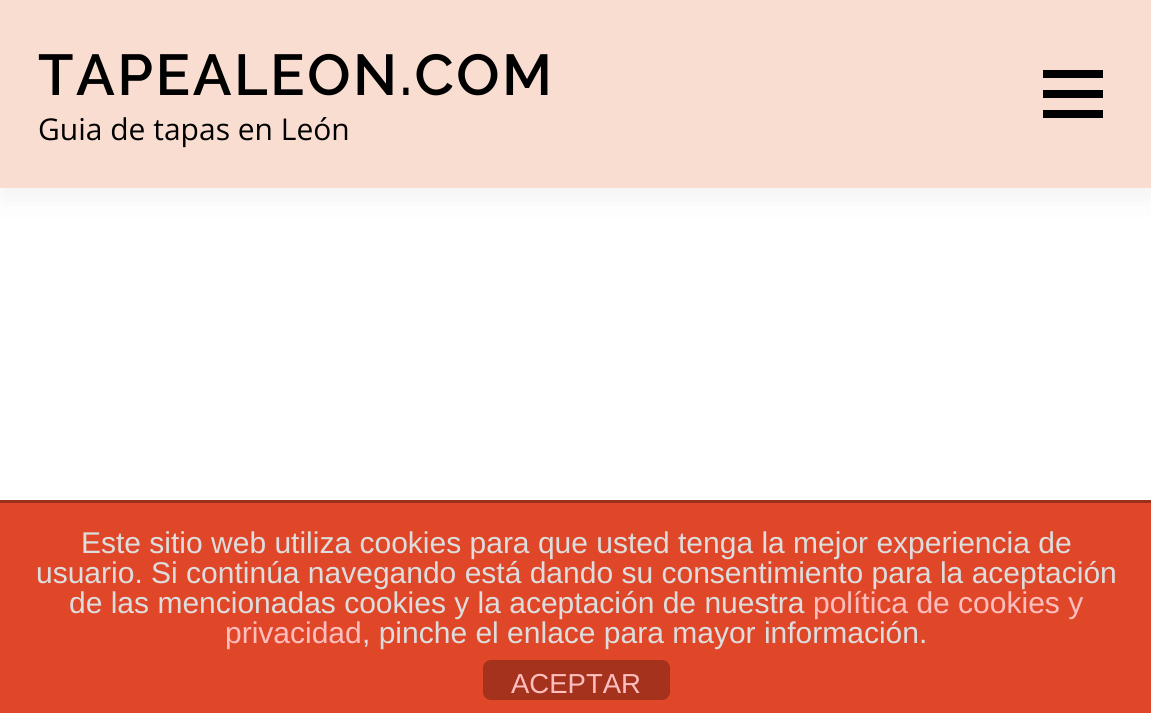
#include <cairo.h>
#include <math.h>
#include <stddef.h>


static void set_color(cairo_t *cr, unsigned color) {
    cairo_set_source_rgb(cr, (color >> 16) / 255.0, (color >> 8 & 255) / 255.0, (color & 255) / 255.0);
}

static void draw_text(cairo_t *cr, double x, double y, const char *s, const char *family, double size, int italic, int bold, unsigned color) {
    cairo_select_font_face(cr, family, italic ? CAIRO_FONT_SLANT_ITALIC : CAIRO_FONT_SLANT_NORMAL,
        bold ? CAIRO_FONT_WEIGHT_BOLD : CAIRO_FONT_WEIGHT_NORMAL);
    cairo_set_font_size(cr, size);
    set_color(cr, color);
    cairo_move_to(cr, x, y);
    cairo_show_text(cr, s);
}

static void draw_spaced(cairo_t *cr, double x, double y, const char *s, double letter, double word) {
    cairo_move_to(cr, x, y);
    while (*s) {
        char ch[5] = {0};
        int n = 0;
        do ch[n++] = *s++; while ((*s & 0xC0) == 0x80);
        cairo_show_text(cr, ch);
        cairo_rel_move_to(cr, letter + word * (*ch == ' '), 0);
    }
}

static void fill_rect(cairo_t *cr, double x, double y, double w, double h, unsigned color) {
    set_color(cr, color);
    cairo_rectangle(cr, x, y, w, h);
    cairo_fill(cr);
}

static void rounded_rect(cairo_t *cr, double x, double y, double w, double h, double r) {
    cairo_new_sub_path(cr);
    cairo_arc(cr, x + w - r, y + h - r, r, 0, M_PI / 2);
    cairo_arc(cr, x + r, y + h - r, r, M_PI / 2, M_PI);
    cairo_arc(cr, x + r, y + r, r, M_PI, 1.5 * M_PI);
    cairo_arc(cr, x + w - r, y + r, r, 1.5 * M_PI, 2 * M_PI);
    cairo_close_path(cr);
}

static void draw_shadow(cairo_t *cr, double x, double y, double w, double h, double r, double blur, double alpha) {
    cairo_push_group_with_content(cr, CAIRO_CONTENT_ALPHA);
    cairo_set_operator(cr, CAIRO_OPERATOR_SOURCE);
    for (int i = 15; i >= -15 && fmin(w, h) + blur * i / 3 > 0; i -= 2) {
        double e = blur * i / 6;
        cairo_set_source_rgba(cr, 0, 0, 0, alpha * erfc((i - 1) / 8.5) / 2);
        rounded_rect(cr, x - e, y - e, w + 2 * e, h + 2 * e, fmax(0, fmin(r + e + blur * .6, fmin(w, h) / 2 + e)));
        cairo_fill(cr);
    }
    cairo_pattern_t *soft = cairo_pop_group(cr);
    cairo_mask(cr, soft);
    cairo_pattern_destroy(soft);
}

int main(void) {
    cairo_surface_t *surface = cairo_image_surface_create(CAIRO_FORMAT_RGB24, 1151, 713);
    cairo_t *cr = cairo_create(surface);
    cairo_font_options_t *options = cairo_font_options_create();
    cairo_font_options_set_hint_metrics(options, CAIRO_HINT_METRICS_OFF);
    cairo_font_options_set_hint_style(options, CAIRO_HINT_STYLE_NONE);
    cairo_set_font_options(cr, options);
    cairo_set_miter_limit(cr, 4);
    set_color(cr, 0xFFFFFF);
    cairo_paint(cr);
    set_color(cr, 0x323232);
    draw_shadow(cr, 0, 13, 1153, 187, 0, 12.5, 0.06);
    fill_rect(cr, 0, 0, 1151, 188, 0xF9DDD1);
    cairo_select_font_face(cr, "Raleway SemiBold", CAIRO_FONT_SLANT_NORMAL, CAIRO_FONT_WEIGHT_NORMAL);
    cairo_set_font_size(cr, 57.5);
    set_color(cr, 0x000000);
    draw_spaced(cr, 38, 95, "TAPEALEON.COM", 2.5, 0);
    draw_text(cr, 38, 140, "Guia de tapas en León", "Open Sans", 30, 0, 0, 0x000000);
    fill_rect(cr, 1043, 90, 60, 8, 0x000000);
    fill_rect(cr, 1043, 70, 60, 8, 0x000000);
    fill_rect(cr, 1043, 110, 60, 8, 0x000000);
    fill_rect(cr, 0, 503, 1151, 210, 0xE04729);
    fill_rect(cr, 0, 500, 1151, 3, 0x99301B);
    draw_text(cr, 81, 553, "Este sitio web utiliza cookies para que usted tenga la mejor experiencia de", "Liberation Sans", 30, 0, 0, 0xDDDDDD);
    draw_text(cr, 36, 583, "usuario. Si continúa navegando está dando su consentimiento para la aceptación", "Liberation Sans", 30, 0, 0, 0xDDDDDD);
    draw_text(cr, 69, 613, "de las mencionadas cookies y la aceptación de nuestra", "Liberation Sans", 30, 0, 0, 0xDDDDDD);
    draw_text(cr, 813, 613, "política de cookies y", "Liberation Sans", 30, 0, 0, 0xFEBEBE);
    draw_text(cr, 225, 643, "privacidad", "Liberation Sans", 30, 0, 0, 0xFEBEBE);
    draw_text(cr, 362, 643, ", pinche el enlace para mayor información.", "Liberation Sans", 30, 0, 0, 0xDDDDDD);
    set_color(cr, 0xA5321C);
    rounded_rect(cr, 483, 660, 187, 40, 8);
    cairo_fill(cr);
    draw_text(cr, 511, 693, "ACEPTAR", "Liberation Sans", 27.5, 0, 0, 0xFEBEBE);
    cairo_surface_write_to_png(surface, "output.png");
    cairo_font_options_destroy(options);
    cairo_destroy(cr);
    cairo_surface_destroy(surface);
    return 0;
}
